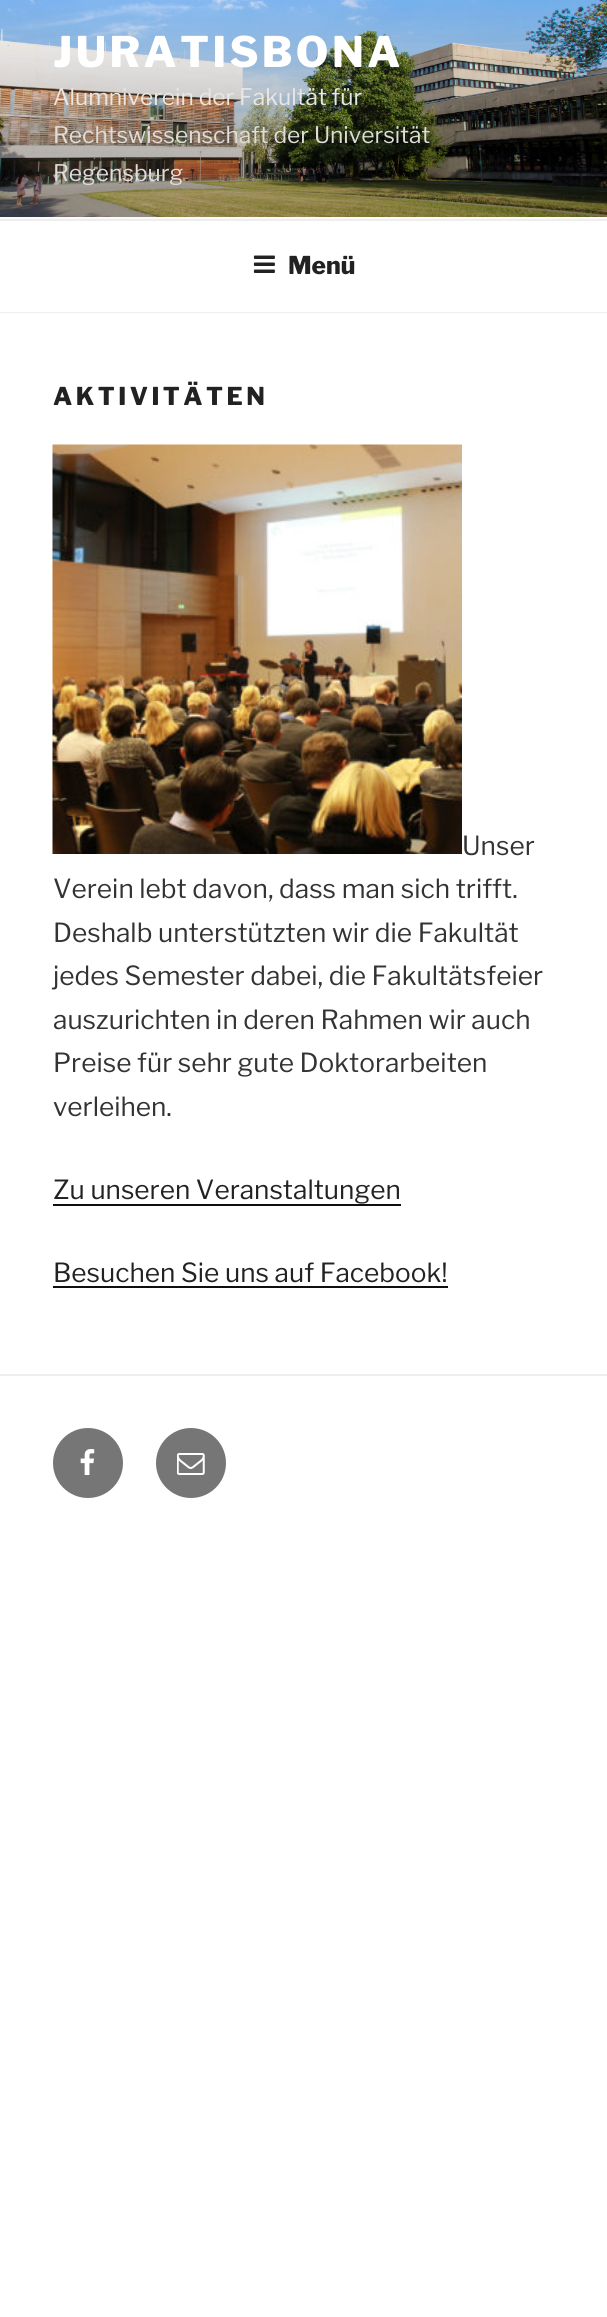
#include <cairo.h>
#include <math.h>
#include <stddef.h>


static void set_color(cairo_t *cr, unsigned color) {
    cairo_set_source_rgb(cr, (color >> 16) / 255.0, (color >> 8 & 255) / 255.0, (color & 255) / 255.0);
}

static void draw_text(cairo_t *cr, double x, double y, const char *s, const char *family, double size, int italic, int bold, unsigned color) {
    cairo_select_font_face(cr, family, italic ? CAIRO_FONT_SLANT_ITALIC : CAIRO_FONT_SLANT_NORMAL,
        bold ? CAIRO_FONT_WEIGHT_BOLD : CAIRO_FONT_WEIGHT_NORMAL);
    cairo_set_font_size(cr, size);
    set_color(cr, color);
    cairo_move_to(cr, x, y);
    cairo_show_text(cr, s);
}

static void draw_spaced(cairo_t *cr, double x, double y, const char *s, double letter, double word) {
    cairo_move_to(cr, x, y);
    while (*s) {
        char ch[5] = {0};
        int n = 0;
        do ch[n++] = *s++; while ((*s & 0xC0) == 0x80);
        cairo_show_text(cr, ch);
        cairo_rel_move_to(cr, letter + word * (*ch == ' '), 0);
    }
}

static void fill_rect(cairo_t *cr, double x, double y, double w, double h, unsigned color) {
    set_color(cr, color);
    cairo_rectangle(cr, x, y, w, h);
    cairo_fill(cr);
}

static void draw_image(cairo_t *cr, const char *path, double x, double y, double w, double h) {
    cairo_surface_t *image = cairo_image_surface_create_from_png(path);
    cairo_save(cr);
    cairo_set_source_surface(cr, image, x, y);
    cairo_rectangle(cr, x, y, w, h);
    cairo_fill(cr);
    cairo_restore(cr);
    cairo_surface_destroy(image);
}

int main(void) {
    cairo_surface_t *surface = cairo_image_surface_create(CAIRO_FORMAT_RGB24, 607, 2317);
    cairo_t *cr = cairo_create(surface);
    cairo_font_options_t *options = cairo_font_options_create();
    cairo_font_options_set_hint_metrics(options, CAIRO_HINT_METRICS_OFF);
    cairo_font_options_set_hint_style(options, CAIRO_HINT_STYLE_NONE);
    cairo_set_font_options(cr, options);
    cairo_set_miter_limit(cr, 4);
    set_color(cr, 0xFFFFFF);
    cairo_paint(cr);
    fill_rect(cr, 0, 217, 607, 2, 0xFAFAFA);
    draw_image(cr, "assets/img1.png", 0, 0, 607, 217);
    cairo_select_font_face(cr, "Libre Franklin Thin", CAIRO_FONT_SLANT_NORMAL, CAIRO_FONT_WEIGHT_NORMAL);
    cairo_set_font_size(cr, 42);
    set_color(cr, 0xFFFFFF);
    draw_spaced(cr, 53, 67, "JURATISBONA", 3.4, 0);
    draw_text(cr, 53, 105, "Alumniverein der Fakultät für", "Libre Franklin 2 Thin", 22.75, 0, 0, 0xE9E7E4);
    draw_text(cr, 53, 143, "Rechtswissenschaft der Universität", "Libre Franklin 2 Thin", 22.75, 0, 0, 0xDFDDD9);
    draw_text(cr, 53, 181, "Regensburg", "Libre Franklin 2 Thin", 22.75, 0, 0, 0xDFDDD9);
    fill_rect(cr, 0, 219, 607, 2, 0xEEEEEE);
    fill_rect(cr, 0, 312, 607, 1, 0xEEEEEE);
    draw_image(cr, "assets/img2.png", 253, 255, 22, 18);
    draw_text(cr, 288, 274, "Menü", "Libre Franklin Thin", 24.5, 0, 0, 0x222222);
    draw_spaced(cr, 53, 405, "AKTIVITÄTEN", 3.5, 0);
    draw_image(cr, "assets/img3.png", 52, 444, 410, 410);
    draw_text(cr, 462, 855, "Unser", "Libre Franklin 2 Thin", 26.25, 0, 0, 0x333333);
    draw_text(cr, 53, 898, "Verein lebt davon, dass man sich trifft.", "Libre Franklin 2 Thin", 26.25, 0, 0, 0x333333);
    draw_text(cr, 53, 942, "Deshalb unterstützten wir die Fakultät", "Libre Franklin 2 Thin", 26.25, 0, 0, 0x333333);
    draw_text(cr, 53, 985, "jedes Semester dabei, die Fakultätsfeier", "Libre Franklin 2 Thin", 26.25, 0, 0, 0x333333);
    draw_text(cr, 53, 1029, "auszurichten in deren Rahmen wir auch", "Libre Franklin 2 Thin", 26.25, 0, 0, 0x333333);
    draw_text(cr, 53, 1072, "Preise für sehr gute Doktorarbeiten", "Libre Franklin 2 Thin", 26.25, 0, 0, 0x333333);
    draw_text(cr, 53, 1116, "verleihen.", "Libre Franklin 2 Thin", 26.25, 0, 0, 0x333333);
    draw_text(cr, 53, 1199, "Zu unseren Veranstaltungen", "Libre Franklin 2 Thin", 26.25, 0, 0, 0x222222);
    fill_rect(cr, 53, 1204, 348, 2, 0x0F0F0F);
    draw_text(cr, 53, 1282, "Besuchen Sie uns auf Facebook!", "Libre Franklin 2 Thin", 26.25, 0, 0, 0x222222);
    fill_rect(cr, 53, 1286, 395, 2, 0x0F0F0F);
    fill_rect(cr, 0, 1374, 607, 2, 0xEEEEEE);
    set_color(cr, 0x767676);
    cairo_new_path(cr);
    cairo_arc(cr, 88, 1463, 35, 0, 2 * M_PI);
    cairo_fill(cr);
    draw_image(cr, "assets/img4.png", 80, 1449, 15, 26);
    cairo_arc(cr, 191, 1463, 35, 0, 2 * M_PI);
    cairo_fill(cr);
    draw_image(cr, "assets/img5.png", 177, 1453, 28, 22);
    cairo_surface_write_to_png(surface, "output.png");
    cairo_font_options_destroy(options);
    cairo_destroy(cr);
    cairo_surface_destroy(surface);
    return 0;
}
